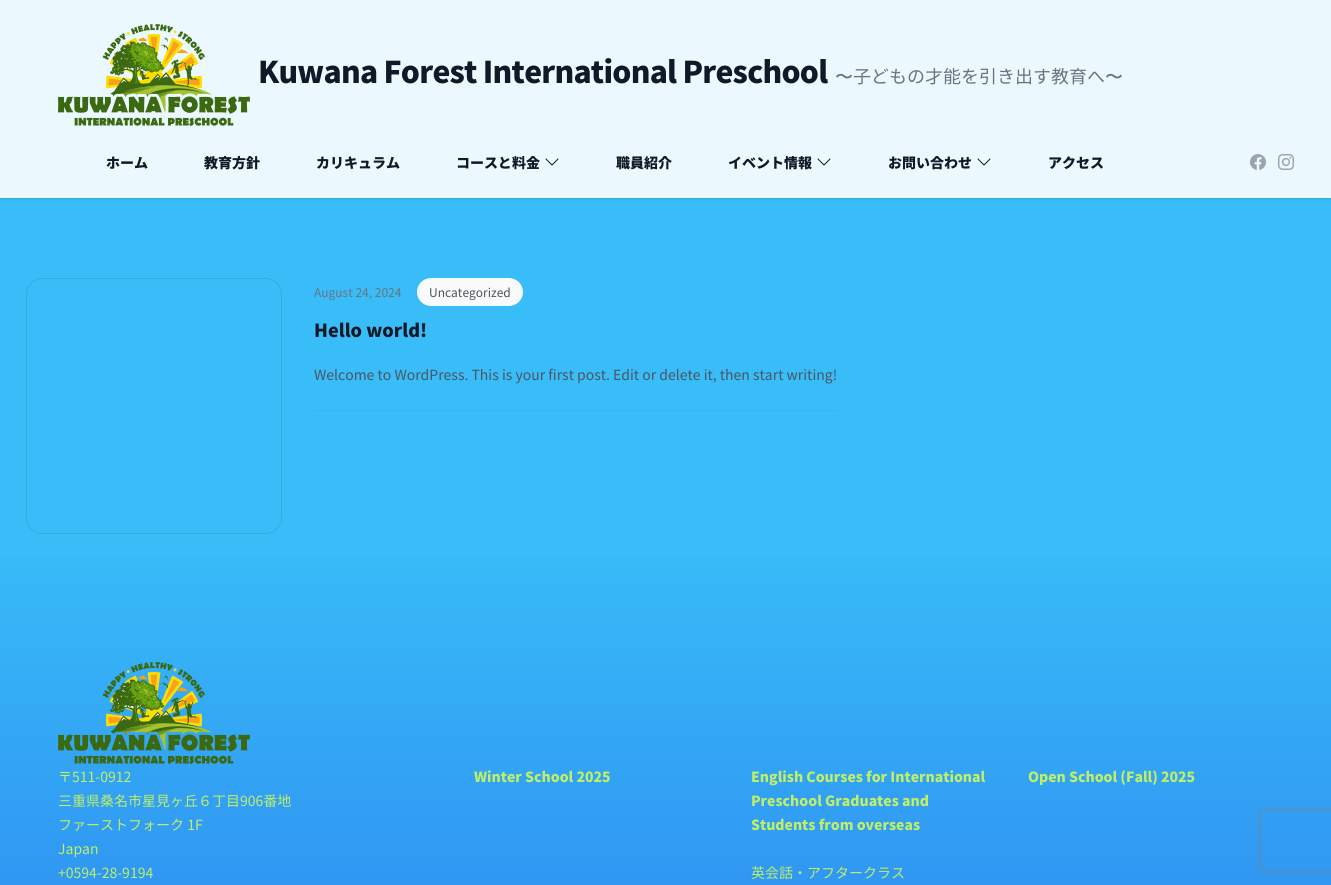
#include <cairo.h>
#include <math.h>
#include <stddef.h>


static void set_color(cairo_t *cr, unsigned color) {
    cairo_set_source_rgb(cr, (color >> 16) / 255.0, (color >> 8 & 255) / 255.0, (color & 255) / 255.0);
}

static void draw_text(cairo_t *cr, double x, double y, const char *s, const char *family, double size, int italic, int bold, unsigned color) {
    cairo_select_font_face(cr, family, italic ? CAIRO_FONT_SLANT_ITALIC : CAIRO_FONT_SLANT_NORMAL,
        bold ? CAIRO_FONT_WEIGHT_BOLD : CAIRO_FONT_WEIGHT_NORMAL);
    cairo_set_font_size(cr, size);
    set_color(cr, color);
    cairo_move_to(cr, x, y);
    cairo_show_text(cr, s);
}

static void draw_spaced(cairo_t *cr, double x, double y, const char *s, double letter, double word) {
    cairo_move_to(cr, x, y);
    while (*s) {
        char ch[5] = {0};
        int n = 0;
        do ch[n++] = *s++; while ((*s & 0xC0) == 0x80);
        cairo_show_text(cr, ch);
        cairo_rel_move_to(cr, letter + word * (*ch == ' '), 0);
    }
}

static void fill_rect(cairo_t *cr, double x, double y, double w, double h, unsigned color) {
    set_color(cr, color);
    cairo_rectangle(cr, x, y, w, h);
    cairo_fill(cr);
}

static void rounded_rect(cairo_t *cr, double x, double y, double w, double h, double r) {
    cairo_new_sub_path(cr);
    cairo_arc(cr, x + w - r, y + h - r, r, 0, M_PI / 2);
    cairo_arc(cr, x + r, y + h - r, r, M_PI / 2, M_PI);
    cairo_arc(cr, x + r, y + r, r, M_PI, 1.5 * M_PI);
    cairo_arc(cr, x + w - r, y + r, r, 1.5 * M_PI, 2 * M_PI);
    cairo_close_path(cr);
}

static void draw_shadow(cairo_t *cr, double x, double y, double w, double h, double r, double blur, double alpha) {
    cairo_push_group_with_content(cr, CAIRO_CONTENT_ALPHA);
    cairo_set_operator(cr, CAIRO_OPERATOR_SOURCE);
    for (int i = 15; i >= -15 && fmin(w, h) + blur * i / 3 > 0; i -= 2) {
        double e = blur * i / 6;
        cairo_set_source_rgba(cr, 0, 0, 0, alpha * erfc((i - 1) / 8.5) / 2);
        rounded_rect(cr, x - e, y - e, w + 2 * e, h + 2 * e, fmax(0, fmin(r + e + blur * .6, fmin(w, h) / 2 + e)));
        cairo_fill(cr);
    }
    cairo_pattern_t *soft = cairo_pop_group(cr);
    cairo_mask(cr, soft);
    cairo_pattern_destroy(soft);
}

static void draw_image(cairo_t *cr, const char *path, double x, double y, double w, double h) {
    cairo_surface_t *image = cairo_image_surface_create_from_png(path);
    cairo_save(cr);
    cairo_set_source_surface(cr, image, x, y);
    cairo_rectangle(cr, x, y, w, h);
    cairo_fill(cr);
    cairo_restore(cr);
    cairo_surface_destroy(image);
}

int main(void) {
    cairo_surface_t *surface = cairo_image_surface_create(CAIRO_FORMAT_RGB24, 1331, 885);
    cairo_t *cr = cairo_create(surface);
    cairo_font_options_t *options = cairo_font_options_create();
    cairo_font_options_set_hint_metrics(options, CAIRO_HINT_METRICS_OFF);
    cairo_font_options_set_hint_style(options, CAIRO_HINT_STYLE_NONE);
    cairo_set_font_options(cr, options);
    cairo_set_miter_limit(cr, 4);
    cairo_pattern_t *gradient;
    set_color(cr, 0x38BDF8);
    cairo_paint(cr);
    set_color(cr, 0x000000);
    draw_shadow(cr, 1, 2, 1329, 196, 0, 1, 0.1);
    draw_shadow(cr, 0, 1, 1331, 198, 0, 1.5, 0.1);
    fill_rect(cr, 0, 0, 1331, 198, 0xEBF8FE);
    draw_image(cr, "assets/img2.png", 106, 34, 96, 55);
    draw_image(cr, "assets/img1.png", 58, 24, 192, 102);
    cairo_select_font_face(cr, "Noto Sans CJK JP Black", CAIRO_FONT_SLANT_NORMAL, CAIRO_FONT_WEIGHT_NORMAL);
    cairo_set_font_size(cr, 30);
    set_color(cr, 0x111827);
    draw_spaced(cr, 258, 83, "Kuwana Forest International Preschool", -0.75, 0);
    draw_text(cr, 835, 83, "〜", "WenQuanYi Zen Hei Medium", 18, 0, 0, 0x6B7280);
    draw_text(cr, 853, 83, "子どもの才能を引き出す教育へ", "Noto Sans CJK JP", 18, 0, 0, 0x6B7280);
    draw_text(cr, 1105, 83, "〜", "WenQuanYi Zen Hei Medium", 18, 0, 0, 0x6B7280);
    draw_text(cr, 106, 168, "ホーム", "Noto Sans CJK JP Black", 14, 0, 0, 0x111827);
    draw_text(cr, 204, 168, "教育方針", "Noto Sans CJK JP Black", 14, 0, 0, 0x111827);
    draw_text(cr, 316, 168, "カリキュラム", "Noto Sans CJK JP Black", 14, 0, 0, 0x111827);
    draw_text(cr, 456, 168, "コースと料金", "Noto Sans CJK JP Black", 14, 0, 0, 0x111827);
    draw_image(cr, "assets/img3.png", 545, 158, 14, 8);
    draw_text(cr, 616, 168, "職員紹介", "Noto Sans CJK JP Black", 14, 0, 0, 0x111827);
    draw_text(cr, 728, 168, "イベント情報", "Noto Sans CJK JP Black", 14, 0, 0, 0x111827);
    draw_image(cr, "assets/img3.png", 817, 158, 14, 8);
    draw_text(cr, 888, 168, "お問い合わせ", "Noto Sans CJK JP Black", 14, 0, 0, 0x111827);
    draw_image(cr, "assets/img3.png", 977, 158, 14, 8);
    draw_text(cr, 1048, 168, "アクセス", "Noto Sans CJK JP Black", 14, 0, 0, 0x111827);
    draw_image(cr, "assets/img4.png", 1250, 154, 16, 16);
    draw_image(cr, "assets/img5.png", 1278, 154, 16, 16);
    rounded_rect(cr, 26.5, 278.5, 255, 255, 15.5);
    set_color(cr, 0x34ACE3);
    cairo_set_line_width(cr, 1);
    cairo_stroke(cr);
    draw_text(cr, 314, 297, "August 24, 2024", "Noto Sans CJK JP", 12, 0, 0, 0x6B7280);
    set_color(cr, 0xF9FAFB);
    rounded_rect(cr, 417, 278, 106, 28, 14);
    cairo_fill(cr);
    draw_text(cr, 429, 297, "Uncategorized", "Noto Sans CJK JP", 12, 0, 0, 0x4B5563);
    draw_text(cr, 314, 337, "Hello world!", "Noto Sans CJK JP Black", 18, 0, 0, 0x111827);
    draw_text(cr, 314, 380, "Welcome to WordPress. This is your first post. Edit or delete it, then start writing!", "Noto Sans CJK JP", 14, 0, 0, 0x4B5563);
    fill_rect(cr, 314, 410, 523, 1, 0x36B5EE);
    gradient = cairo_pattern_create_linear(666, 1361, 666, 534);
    cairo_pattern_add_color_stop_rgba(gradient, 0, 0.145, 0.388, 0.922, 1);
    cairo_pattern_add_color_stop_rgba(gradient, 1, 0.22, 0.741, 0.973, 1);
    cairo_set_source(cr, gradient);
    cairo_pattern_destroy(gradient);
    cairo_rectangle(cr, 0, 557, 1331, 328);
    cairo_fill(cr);
    draw_image(cr, "assets/img7.png", 106, 672, 96, 55);
    draw_image(cr, "assets/img6.png", 58, 662, 192, 102);
    draw_text(cr, 58, 782, "〒511-0912", "Noto Sans CJK JP", 14, 0, 0, 0xBFEF67);
    draw_text(cr, 58, 806, "三重県桑名市星見ヶ丘６丁目906番地", "Noto Sans CJK JP", 14, 0, 0, 0xBFEF67);
    draw_text(cr, 58, 830, "ファーストフォーク 1F", "Noto Sans CJK JP", 14, 0, 0, 0xBFEF67);
    draw_text(cr, 58, 854, "Japan", "Noto Sans CJK JP", 14, 0, 0, 0xBFEF67);
    draw_text(cr, 58, 878, "+0594-28-9194", "Noto Sans CJK JP", 14, 0, 0, 0xBFEF67);
    draw_text(cr, 474, 782, "Winter School 2025", "Noto Sans CJK JP Black", 14, 0, 0, 0xBFEF67);
    draw_text(cr, 751, 782, "English Courses for International", "Noto Sans CJK JP Black", 14, 0, 0, 0xBFEF67);
    draw_text(cr, 751, 806, "Preschool Graduates and", "Noto Sans CJK JP Black", 14, 0, 0, 0xBFEF67);
    draw_text(cr, 751, 830, "Students from overseas", "Noto Sans CJK JP Black", 14, 0, 0, 0xBFEF67);
    draw_text(cr, 751, 878, "英会話・アフタークラス", "Noto Sans CJK JP", 14, 0, 0, 0xBFEF67);
    draw_text(cr, 1028, 782, "Open School (Fall) 2025", "Noto Sans CJK JP Black", 14, 0, 0, 0xBFEF67);
    cairo_save(cr);
    cairo_set_fill_rule(cr, CAIRO_FILL_RULE_EVEN_ODD);
    cairo_new_path(cr);
    cairo_move_to(cr, 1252, 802);
    cairo_line_to(cr, 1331, 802);
    cairo_line_to(cr, 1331, 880);
    cairo_line_to(cr, 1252, 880);
    cairo_close_path(cr);
    cairo_move_to(cr, 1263, 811);
    cairo_line_to(cr, 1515, 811);
    cairo_curve_to(cr, 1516, 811, 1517, 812, 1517, 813);
    cairo_line_to(cr, 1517, 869);
    cairo_curve_to(cr, 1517, 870, 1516, 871, 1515, 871);
    cairo_line_to(cr, 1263, 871);
    cairo_curve_to(cr, 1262, 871, 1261, 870, 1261, 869);
    cairo_line_to(cr, 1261, 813);
    cairo_curve_to(cr, 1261, 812, 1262, 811, 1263, 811);
    cairo_close_path(cr);
    cairo_clip(cr);
    set_color(cr, 0x808080);
    draw_shadow(cr, 1261, 811, 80, 60, 2, 2.5, 1);
    cairo_restore(cr);
    cairo_surface_write_to_png(surface, "output.png");
    cairo_font_options_destroy(options);
    cairo_destroy(cr);
    cairo_surface_destroy(surface);
    return 0;
}
